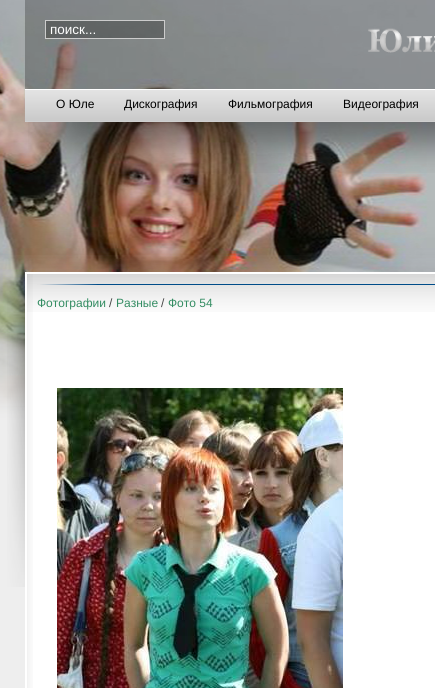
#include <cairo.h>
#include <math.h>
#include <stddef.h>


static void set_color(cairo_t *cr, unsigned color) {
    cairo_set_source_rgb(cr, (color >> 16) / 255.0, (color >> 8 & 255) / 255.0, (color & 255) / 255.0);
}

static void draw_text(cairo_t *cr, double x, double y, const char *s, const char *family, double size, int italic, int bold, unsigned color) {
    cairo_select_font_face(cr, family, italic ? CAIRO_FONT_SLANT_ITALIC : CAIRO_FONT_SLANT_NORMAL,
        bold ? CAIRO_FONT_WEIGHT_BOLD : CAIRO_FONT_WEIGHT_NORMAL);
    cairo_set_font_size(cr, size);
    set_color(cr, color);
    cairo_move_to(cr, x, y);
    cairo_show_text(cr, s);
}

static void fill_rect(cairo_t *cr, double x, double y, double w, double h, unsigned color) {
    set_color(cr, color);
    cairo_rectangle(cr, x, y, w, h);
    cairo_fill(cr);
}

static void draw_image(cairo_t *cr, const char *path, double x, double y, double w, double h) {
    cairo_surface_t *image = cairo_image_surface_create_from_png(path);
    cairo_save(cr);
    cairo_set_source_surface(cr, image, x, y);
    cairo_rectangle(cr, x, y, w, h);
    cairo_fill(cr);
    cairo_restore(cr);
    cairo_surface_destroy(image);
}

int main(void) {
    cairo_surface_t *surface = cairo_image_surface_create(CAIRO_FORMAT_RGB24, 435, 688);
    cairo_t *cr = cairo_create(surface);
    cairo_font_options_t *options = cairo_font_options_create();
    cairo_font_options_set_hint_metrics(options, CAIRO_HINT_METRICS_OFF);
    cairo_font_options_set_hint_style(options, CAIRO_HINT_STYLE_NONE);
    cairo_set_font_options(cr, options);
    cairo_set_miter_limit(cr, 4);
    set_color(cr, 0xEEEEEE);
    cairo_paint(cr);
    draw_image(cr, "assets/img1.png", 0, 0, 435, 420);
    draw_image(cr, "assets/img2.png", 0, 255, 435, 195);
    cairo_set_source_rgba(cr, 0, 0, 0, 0.25);
    cairo_rectangle(cr, 25, 0, 410, 83);
    cairo_fill(cr);
    draw_image(cr, "assets/img3.png", 368, 28, 67, 25);
    cairo_rectangle(cr, 45.5, 20.5, 119, 18);
    cairo_fill_preserve(cr);
    set_color(cr, 0xCCCCCC);
    cairo_set_line_width(cr, 1);
    cairo_stroke(cr);
    draw_text(cr, 50, 34, "поиск...", "Liberation Sans", 13.5, 0, 0, 0xFFFFFF);
    draw_image(cr, "assets/img4.png", 25, 83, 410, 39);
    draw_text(cr, 56, 108, "О Юле", "Liberation Sans", 12, 0, 0, 0x000000);
    draw_text(cr, 124, 108, "Дискография", "Liberation Sans", 12, 0, 0, 0x000000);
    draw_text(cr, 228, 108, "Фильмография", "Liberation Sans", 12, 0, 0, 0x000000);
    draw_text(cr, 343, 108, "Видеография", "Liberation Sans", 12, 0, 0, 0x000000);
    draw_image(cr, "assets/img5.png", 28, 122, 131, 51);
    draw_image(cr, "assets/img6.png", 159, 122, 276, 51);
    draw_image(cr, "assets/img7.png", 7, 280, 18, 307);
    fill_rect(cr, 25, 272, 410, 416, 0xFFFFFF);
    draw_image(cr, "assets/img8.png", 27, 274, 408, 38);
    draw_image(cr, "assets/img9.png", 27, 274, 6, 414);
    fill_rect(cr, 37, 284, 398, 1, 0x004C89);
    draw_image(cr, "assets/img10.png", 37, 284, 60, 1);
    draw_text(cr, 37, 307, "Фотографии", "Liberation Sans", 12, 0, 0, 0x348D63);
    draw_text(cr, 109, 307, "/", "Liberation Sans", 12, 0, 0, 0x444444);
    draw_text(cr, 116, 307, "Разные", "Liberation Sans", 12, 0, 0, 0x348D63);
    draw_text(cr, 161, 307, "/", "Liberation Sans", 12, 0, 0, 0x444444);
    draw_text(cr, 168, 307, "Фото 54", "Liberation Sans", 12, 0, 0, 0x348D63);
    draw_image(cr, "assets/img11.png", 57, 388, 286, 300);
    cairo_surface_write_to_png(surface, "output.png");
    cairo_font_options_destroy(options);
    cairo_destroy(cr);
    cairo_surface_destroy(surface);
    return 0;
}
